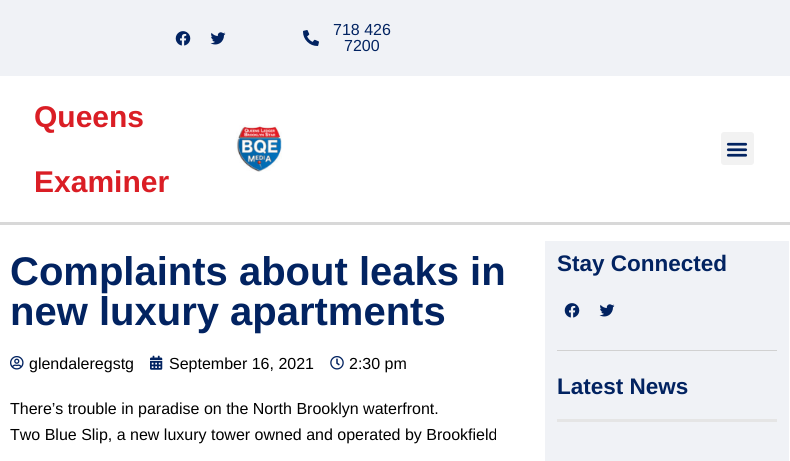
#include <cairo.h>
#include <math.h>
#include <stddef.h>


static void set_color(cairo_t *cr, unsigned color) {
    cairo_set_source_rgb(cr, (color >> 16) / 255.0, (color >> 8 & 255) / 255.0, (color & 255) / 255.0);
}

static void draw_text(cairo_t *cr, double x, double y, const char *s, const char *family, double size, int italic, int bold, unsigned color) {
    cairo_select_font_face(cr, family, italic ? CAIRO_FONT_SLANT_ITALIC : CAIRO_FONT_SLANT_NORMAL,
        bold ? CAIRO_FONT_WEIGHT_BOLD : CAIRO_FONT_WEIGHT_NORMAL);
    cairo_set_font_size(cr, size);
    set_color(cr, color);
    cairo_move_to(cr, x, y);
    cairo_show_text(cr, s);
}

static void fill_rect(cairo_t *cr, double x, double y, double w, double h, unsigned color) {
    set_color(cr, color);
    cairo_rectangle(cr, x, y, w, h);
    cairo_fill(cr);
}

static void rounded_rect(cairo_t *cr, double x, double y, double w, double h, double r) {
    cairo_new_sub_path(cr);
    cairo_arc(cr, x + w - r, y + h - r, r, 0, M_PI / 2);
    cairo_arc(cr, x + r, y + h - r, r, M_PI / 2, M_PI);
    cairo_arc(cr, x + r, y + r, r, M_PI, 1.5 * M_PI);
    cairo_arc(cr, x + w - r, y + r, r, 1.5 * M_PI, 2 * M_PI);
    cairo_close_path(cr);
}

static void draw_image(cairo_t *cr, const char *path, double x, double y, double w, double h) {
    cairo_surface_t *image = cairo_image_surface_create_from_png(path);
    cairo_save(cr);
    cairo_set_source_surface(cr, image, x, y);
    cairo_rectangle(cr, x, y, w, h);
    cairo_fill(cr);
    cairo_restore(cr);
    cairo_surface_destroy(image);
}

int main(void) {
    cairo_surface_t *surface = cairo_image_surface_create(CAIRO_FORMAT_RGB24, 790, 461);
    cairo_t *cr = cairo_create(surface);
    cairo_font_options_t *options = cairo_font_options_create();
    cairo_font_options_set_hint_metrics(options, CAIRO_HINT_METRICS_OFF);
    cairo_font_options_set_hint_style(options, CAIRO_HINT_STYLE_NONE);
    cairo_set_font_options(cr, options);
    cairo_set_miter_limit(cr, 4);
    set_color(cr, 0xFFFFFF);
    cairo_paint(cr);
    fill_rect(cr, 0, 0, 790, 76, 0xF0F2F6);
    draw_image(cr, "assets/img1.png", 175, 31, 16, 15);
    draw_image(cr, "assets/img2.png", 210, 32, 16, 13);
    draw_image(cr, "assets/img3.png", 303, 30, 16, 16);
    draw_text(cr, 333, 35, "718 426", "Liberation Sans", 16, 0, 0, 0x022361);
    draw_text(cr, 344, 51, "7200", "Liberation Sans", 16, 0, 0, 0x022361);
    fill_rect(cr, 0, 222, 790, 3, 0xD8D8D8);
    draw_text(cr, 34, 127, "Queens", "Liberation Sans", 30, 0, 1, 0xDA1E25);
    draw_text(cr, 34, 192, "Examiner", "Liberation Sans", 30, 0, 1, 0xDA1E25);
    draw_image(cr, "assets/img4.png", 236, 125, 46, 47);
    set_color(cr, 0xF2F2F2);
    rounded_rect(cr, 721, 132, 33, 33, 3);
    cairo_fill(cr);
    draw_image(cr, "assets/img5.png", 726, 142, 22, 15);
    draw_text(cr, 10, 285, "Complaints about leaks in", "Liberation Sans", 40, 0, 1, 0x022361);
    draw_text(cr, 10, 325, "new luxury apartments", "Liberation Sans", 40, 0, 1, 0x022361);
    draw_image(cr, "assets/img6.png", 10, 356, 14, 14);
    draw_text(cr, 29, 369, "glendaleregstg", "Liberation Sans", 16, 0, 0, 0x000000);
    draw_image(cr, "assets/img7.png", 150, 355, 13, 15);
    draw_text(cr, 169, 369, "September 16, 2021", "Liberation Sans", 16, 0, 0, 0x000000);
    draw_image(cr, "assets/img8.png", 330, 356, 14, 14);
    draw_text(cr, 349, 369, "2:30 pm", "Liberation Sans", 16, 0, 0, 0x000000);
    draw_text(cr, 10, 414, "There’s trouble in paradise on the North Brooklyn waterfront.", "Liberation Sans", 16, 0, 0, 0x000000);
    draw_text(cr, 10, 440, "Two Blue Slip, a new luxury tower owned and operated by Brookfield", "Liberation Sans", 16, 0, 0, 0x000000);
    fill_rect(cr, 545, 241, 244, 220, 0xF0F2F6);
    draw_text(cr, 557, 271, "Stay Connected", "Liberation Sans", 22.5, 0, 1, 0x022361);
    draw_image(cr, "assets/img1.png", 564, 303, 16, 15);
    draw_image(cr, "assets/img2.png", 599, 304, 16, 13);
    fill_rect(cr, 557, 350, 220, 1, 0xD1D1D1);
    draw_text(cr, 557, 394, "Latest News", "Liberation Sans", 22.5, 0, 1, 0x022361);
    fill_rect(cr, 557, 419, 220, 1, 0xE5E5E5);
    fill_rect(cr, 776, 419, 1, 3, 0xE5E5E5);
    fill_rect(cr, 557, 420, 220, 2, 0xE5E5E5);
    cairo_surface_write_to_png(surface, "output.png");
    cairo_font_options_destroy(options);
    cairo_destroy(cr);
    cairo_surface_destroy(surface);
    return 0;
}
